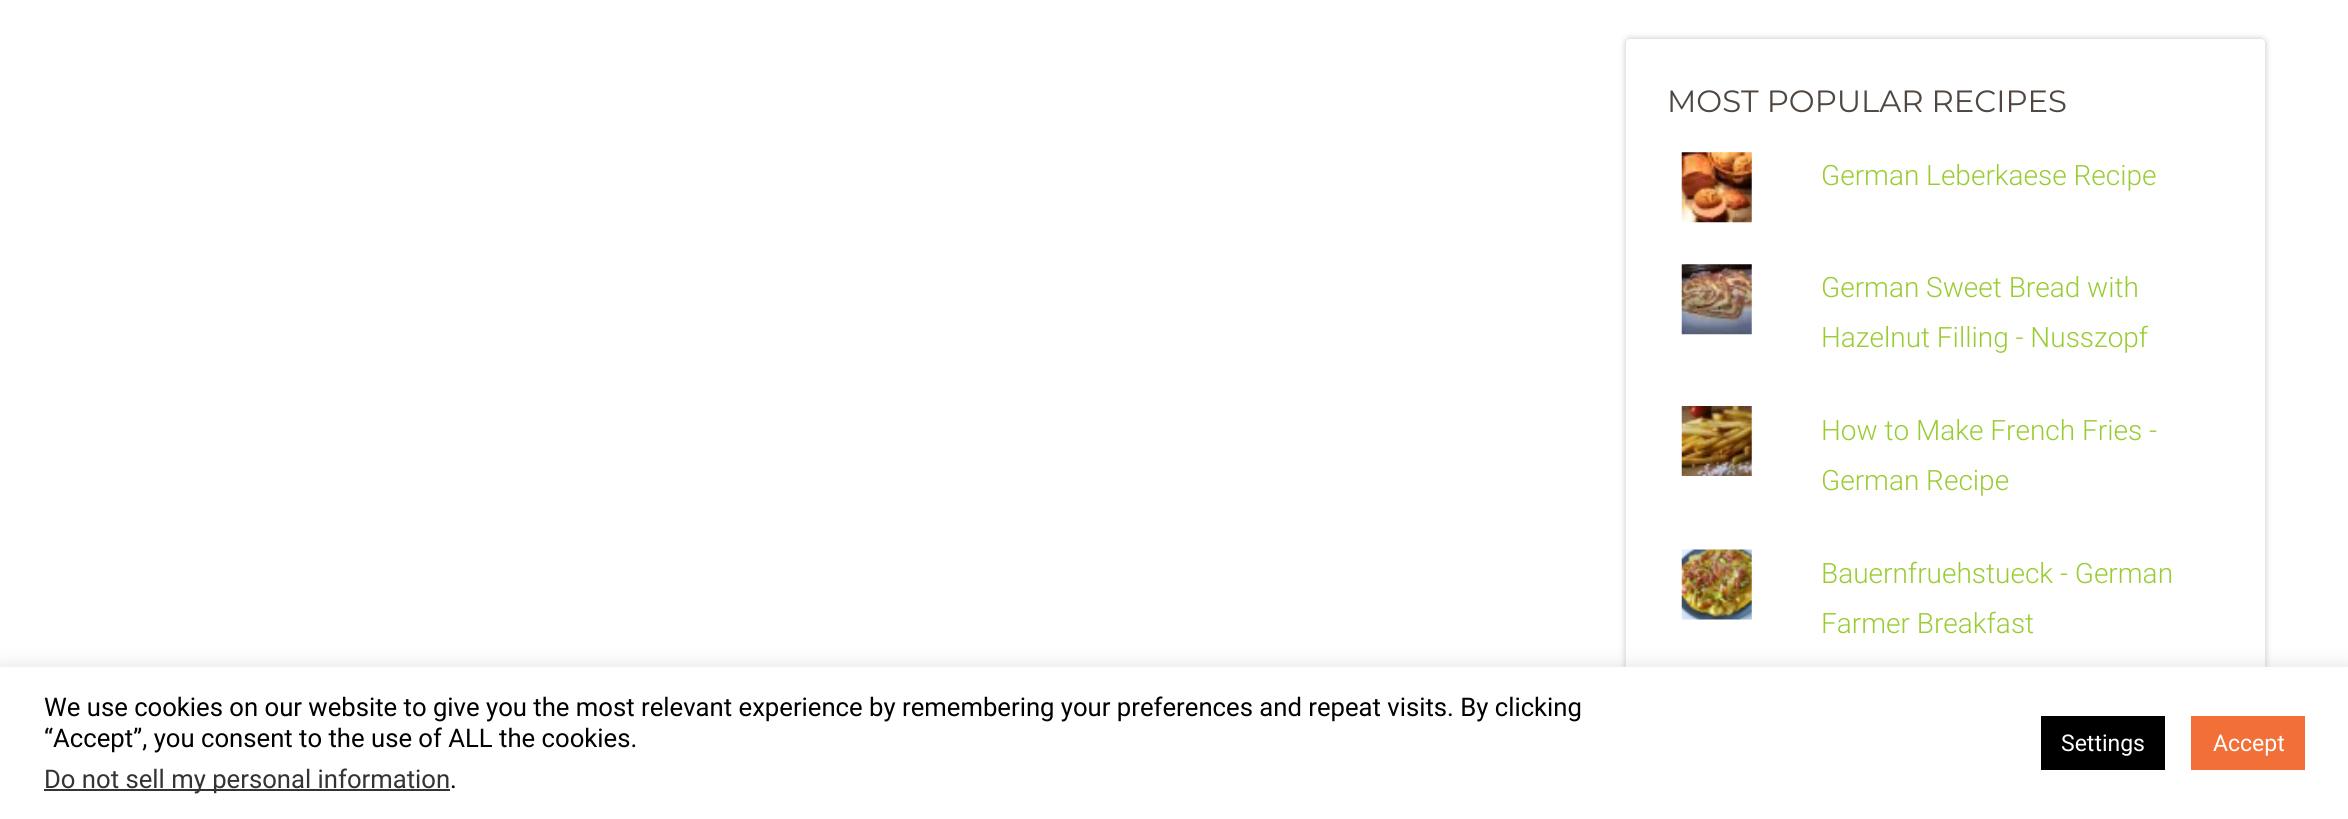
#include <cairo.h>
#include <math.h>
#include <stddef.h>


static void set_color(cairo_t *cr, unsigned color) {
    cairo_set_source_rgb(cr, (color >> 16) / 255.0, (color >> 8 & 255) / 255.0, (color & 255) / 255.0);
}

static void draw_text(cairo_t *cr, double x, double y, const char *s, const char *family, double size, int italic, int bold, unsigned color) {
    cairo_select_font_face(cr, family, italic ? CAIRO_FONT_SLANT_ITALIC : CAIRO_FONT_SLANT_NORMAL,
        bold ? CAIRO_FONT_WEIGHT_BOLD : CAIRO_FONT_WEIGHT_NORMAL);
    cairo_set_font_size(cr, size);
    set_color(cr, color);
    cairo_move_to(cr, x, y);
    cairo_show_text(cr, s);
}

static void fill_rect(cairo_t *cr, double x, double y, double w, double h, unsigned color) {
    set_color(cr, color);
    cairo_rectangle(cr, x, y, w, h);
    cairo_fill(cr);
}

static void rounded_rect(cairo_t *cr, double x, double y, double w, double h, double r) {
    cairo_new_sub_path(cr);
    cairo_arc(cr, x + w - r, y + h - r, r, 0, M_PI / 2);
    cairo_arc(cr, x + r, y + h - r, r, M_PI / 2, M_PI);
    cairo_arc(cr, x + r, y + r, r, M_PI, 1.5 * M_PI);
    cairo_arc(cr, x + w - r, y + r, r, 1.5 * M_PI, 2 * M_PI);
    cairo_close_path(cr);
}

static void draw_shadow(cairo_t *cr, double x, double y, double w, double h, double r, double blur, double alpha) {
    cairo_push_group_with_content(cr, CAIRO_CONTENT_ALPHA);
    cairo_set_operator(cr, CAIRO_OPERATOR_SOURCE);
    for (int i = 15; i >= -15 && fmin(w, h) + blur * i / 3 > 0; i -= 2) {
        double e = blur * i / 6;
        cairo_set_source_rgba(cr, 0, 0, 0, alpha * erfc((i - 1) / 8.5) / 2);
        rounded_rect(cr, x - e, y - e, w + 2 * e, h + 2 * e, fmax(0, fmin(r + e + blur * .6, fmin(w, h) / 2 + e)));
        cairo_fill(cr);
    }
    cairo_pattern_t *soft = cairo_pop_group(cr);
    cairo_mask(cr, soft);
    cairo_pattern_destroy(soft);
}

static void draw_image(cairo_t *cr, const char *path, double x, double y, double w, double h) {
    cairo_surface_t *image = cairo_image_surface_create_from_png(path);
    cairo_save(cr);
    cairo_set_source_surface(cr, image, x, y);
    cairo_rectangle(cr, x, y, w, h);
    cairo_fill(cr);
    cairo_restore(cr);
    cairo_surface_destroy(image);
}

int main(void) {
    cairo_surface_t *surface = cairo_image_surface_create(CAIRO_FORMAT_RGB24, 2348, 819);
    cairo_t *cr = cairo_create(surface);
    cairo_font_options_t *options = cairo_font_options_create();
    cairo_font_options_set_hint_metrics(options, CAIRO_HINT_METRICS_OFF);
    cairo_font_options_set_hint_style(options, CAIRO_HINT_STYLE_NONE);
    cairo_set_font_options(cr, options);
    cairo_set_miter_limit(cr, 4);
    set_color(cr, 0xFFFFFF);
    cairo_paint(cr);
    set_color(cr, 0x000000);
    draw_shadow(cr, 1626, 39, 639, 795, 4, 3.5, 0.24);
    set_color(cr, 0xFFFFFF);
    rounded_rect(cr, 1626, 39, 639, 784, 4);
    cairo_fill(cr);
    draw_text(cr, 1667, 112, "MOST POPULAR RECIPES", "Montserrat", 30.75, 0, 0, 0x504741);
    draw_image(cr, "assets/img1.png", 1681, 152, 71, 71);
    draw_text(cr, 1821, 185, "German Leberkaese Recipe", "Roboto Light", 28, 0, 0, 0x99CC33);
    draw_image(cr, "assets/img2.png", 1681, 264, 71, 71);
    draw_text(cr, 1821, 297, "German Sweet Bread with", "Roboto Light", 28, 0, 0, 0x99CC33);
    draw_text(cr, 1821, 347, "Hazelnut Filling - Nusszopf", "Roboto Light", 28, 0, 0, 0x99CC33);
    draw_image(cr, "assets/img3.png", 1681, 406, 71, 70);
    draw_text(cr, 1821, 440, "How to Make French Fries -", "Roboto Light", 28, 0, 0, 0x99CC33);
    draw_text(cr, 1821, 490, "German Recipe", "Roboto Light", 28, 0, 0, 0x99CC33);
    draw_image(cr, "assets/img4.png", 1681, 549, 71, 71);
    draw_text(cr, 1821, 583, "Bauernfruehstueck - German", "Roboto Light", 28, 0, 0, 0x99CC33);
    draw_text(cr, 1821, 633, "Farmer Breakfast", "Roboto Light", 28, 0, 0, 0x99CC33);
    set_color(cr, 0xACABAB);
    draw_shadow(cr, 0, 665, 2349, 152, 0, 9, 0.3);
    fill_rect(cr, 0, 667, 2348, 152, 0xFFFFFF);
    draw_text(cr, 44, 716, "We use cookies on our website to give you the most relevant experience by remembering your preferences and repeat visits. By clicking", "Roboto", 25.67, 0, 0, 0x000000);
    draw_text(cr, 44, 747, "“Accept”, you consent to the use of ALL the cookies.", "Roboto", 25.67, 0, 0, 0x000000);
    fill_rect(cr, 44, 789, 406, 2, 0x333333);
    draw_text(cr, 44, 788, "Do not sell my personal information", "Roboto", 25.67, 0, 0, 0x333333);
    draw_text(cr, 450, 788, ".", "Roboto", 25.67, 0, 0, 0x000000);
    fill_rect(cr, 2041, 716, 124, 54, 0x000000);
    draw_text(cr, 2061, 751, "Settings", "Roboto", 23, 0, 0, 0xFFFFFF);
    fill_rect(cr, 2191, 716, 114, 54, 0xF26F37);
    draw_text(cr, 2213, 751, "Accept", "Roboto", 23, 0, 0, 0xFFFFFF);
    cairo_surface_write_to_png(surface, "output.png");
    cairo_font_options_destroy(options);
    cairo_destroy(cr);
    cairo_surface_destroy(surface);
    return 0;
}
